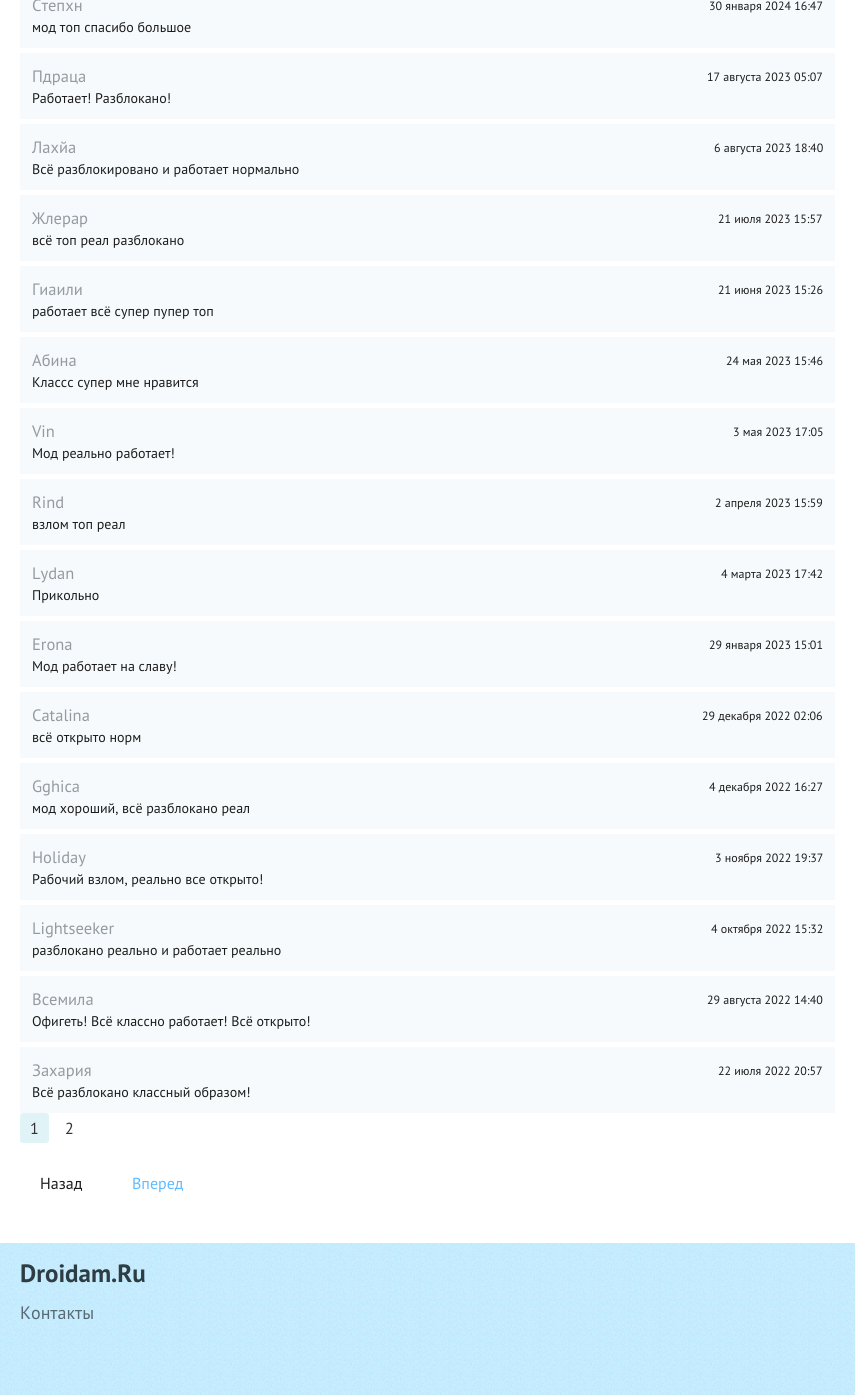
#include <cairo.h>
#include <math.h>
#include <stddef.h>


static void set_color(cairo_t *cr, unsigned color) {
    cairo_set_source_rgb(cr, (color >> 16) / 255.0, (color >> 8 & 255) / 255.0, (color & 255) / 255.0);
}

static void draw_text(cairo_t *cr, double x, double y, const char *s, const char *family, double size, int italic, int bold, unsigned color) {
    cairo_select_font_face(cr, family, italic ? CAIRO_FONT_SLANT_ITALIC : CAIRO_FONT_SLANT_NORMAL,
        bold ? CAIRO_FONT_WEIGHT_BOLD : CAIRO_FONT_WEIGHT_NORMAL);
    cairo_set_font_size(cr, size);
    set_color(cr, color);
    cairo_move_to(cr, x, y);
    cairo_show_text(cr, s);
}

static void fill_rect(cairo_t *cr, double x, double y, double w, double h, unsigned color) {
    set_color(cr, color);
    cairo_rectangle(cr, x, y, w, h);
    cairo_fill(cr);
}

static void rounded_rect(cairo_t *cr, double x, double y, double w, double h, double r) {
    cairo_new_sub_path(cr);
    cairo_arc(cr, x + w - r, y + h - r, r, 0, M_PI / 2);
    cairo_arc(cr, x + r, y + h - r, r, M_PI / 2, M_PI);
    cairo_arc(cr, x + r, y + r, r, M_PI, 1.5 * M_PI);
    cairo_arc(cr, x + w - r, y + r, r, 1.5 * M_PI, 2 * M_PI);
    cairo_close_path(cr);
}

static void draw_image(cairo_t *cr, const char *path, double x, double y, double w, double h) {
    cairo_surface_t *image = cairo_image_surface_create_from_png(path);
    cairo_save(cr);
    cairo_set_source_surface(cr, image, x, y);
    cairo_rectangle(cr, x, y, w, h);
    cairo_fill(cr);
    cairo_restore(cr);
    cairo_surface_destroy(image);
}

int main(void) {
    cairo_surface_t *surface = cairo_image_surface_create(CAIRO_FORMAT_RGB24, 855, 1395);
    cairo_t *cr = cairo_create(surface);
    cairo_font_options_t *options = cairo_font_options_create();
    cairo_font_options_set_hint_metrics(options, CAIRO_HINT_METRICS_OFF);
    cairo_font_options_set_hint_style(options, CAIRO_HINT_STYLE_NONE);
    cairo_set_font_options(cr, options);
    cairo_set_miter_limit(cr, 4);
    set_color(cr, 0xFFFFFF);
    cairo_paint(cr);
    draw_image(cr, "assets/img1.png", 0, 1243, 855, 152);
    fill_rect(cr, 20, 0, 815, 48, 0xF7FAFC);
    draw_text(cr, 32, 11, "Степхн", "PT Sans", 16.5, 0, 0, 0x939BA0);
    draw_text(cr, 709, 10, "30 января 2024 16:47", "PT Sans", 12, 0, 0, 0x1C1C1C);
    draw_text(cr, 32, 32, "мод топ спасибо большое", "PT Sans", 14, 0, 0, 0x1C1C1C);
    fill_rect(cr, 20, 53, 815, 66, 0xF7FAFC);
    draw_text(cr, 32, 82, "Пдраца", "PT Sans", 16.5, 0, 0, 0x939BA0);
    draw_text(cr, 707, 81, "17 августа 2023 05:07", "PT Sans", 12, 0, 0, 0x1C1C1C);
    draw_text(cr, 32, 103, "Работает! Разблокано!", "PT Sans", 14, 0, 0, 0x1C1C1C);
    fill_rect(cr, 20, 124, 815, 66, 0xF7FAFC);
    draw_text(cr, 32, 153, "Лахйа", "PT Sans", 16.5, 0, 0, 0x939BA0);
    draw_text(cr, 714, 152, "6 августа 2023 18:40", "PT Sans", 12, 0, 0, 0x1C1C1C);
    draw_text(cr, 32, 174, "Всё разблокировано и работает нормально", "PT Sans", 14, 0, 0, 0x1C1C1C);
    fill_rect(cr, 20, 195, 815, 66, 0xF7FAFC);
    draw_text(cr, 32, 224, "Жлерар", "PT Sans", 16.5, 0, 0, 0x939BA0);
    draw_text(cr, 718, 223, "21 июля 2023 15:57", "PT Sans", 12, 0, 0, 0x1C1C1C);
    draw_text(cr, 32, 245, "всё топ реал разблокано", "PT Sans", 14, 0, 0, 0x1C1C1C);
    fill_rect(cr, 20, 266, 815, 66, 0xF7FAFC);
    draw_text(cr, 32, 295, "Гиаили", "PT Sans", 16.5, 0, 0, 0x939BA0);
    draw_text(cr, 718, 294, "21 июня 2023 15:26", "PT Sans", 12, 0, 0, 0x1C1C1C);
    draw_text(cr, 32, 316, "работает всё супер пупер топ", "PT Sans", 14, 0, 0, 0x1C1C1C);
    fill_rect(cr, 20, 337, 815, 66, 0xF7FAFC);
    draw_text(cr, 32, 366, "Абина", "PT Sans", 16.5, 0, 0, 0x939BA0);
    draw_text(cr, 726, 365, "24 мая 2023 15:46", "PT Sans", 12, 0, 0, 0x1C1C1C);
    draw_text(cr, 32, 387, "Классс супер мне нравится", "PT Sans", 14, 0, 0, 0x1C1C1C);
    fill_rect(cr, 20, 408, 815, 66, 0xF7FAFC);
    draw_text(cr, 32, 437, "Vin", "PT Sans", 16.5, 0, 0, 0x939BA0);
    draw_text(cr, 733, 436, "3 мая 2023 17:05", "PT Sans", 12, 0, 0, 0x1C1C1C);
    draw_text(cr, 32, 458, "Мод реально работает!", "PT Sans", 14, 0, 0, 0x1C1C1C);
    fill_rect(cr, 20, 479, 815, 66, 0xF7FAFC);
    draw_text(cr, 32, 508, "Rind", "PT Sans", 16.5, 0, 0, 0x939BA0);
    draw_text(cr, 715, 507, "2 апреля 2023 15:59", "PT Sans", 12, 0, 0, 0x1C1C1C);
    draw_text(cr, 32, 529, "взлом топ реал", "PT Sans", 14, 0, 0, 0x1C1C1C);
    fill_rect(cr, 20, 550, 815, 66, 0xF7FAFC);
    draw_text(cr, 32, 579, "Lydan", "PT Sans", 16.5, 0, 0, 0x939BA0);
    draw_text(cr, 721, 578, "4 марта 2023 17:42", "PT Sans", 12, 0, 0, 0x1C1C1C);
    draw_text(cr, 32, 600, "Прикольно", "PT Sans", 14, 0, 0, 0x1C1C1C);
    fill_rect(cr, 20, 621, 815, 66, 0xF7FAFC);
    draw_text(cr, 32, 650, "Erona", "PT Sans", 16.5, 0, 0, 0x939BA0);
    draw_text(cr, 709, 649, "29 января 2023 15:01", "PT Sans", 12, 0, 0, 0x1C1C1C);
    draw_text(cr, 32, 671, "Мод работает на славу!", "PT Sans", 14, 0, 0, 0x1C1C1C);
    fill_rect(cr, 20, 692, 815, 66, 0xF7FAFC);
    draw_text(cr, 32, 721, "Catalina", "PT Sans", 16.5, 0, 0, 0x939BA0);
    draw_text(cr, 702, 720, "29 декабря 2022 02:06", "PT Sans", 12, 0, 0, 0x1C1C1C);
    draw_text(cr, 32, 742, "всё открыто норм", "PT Sans", 14, 0, 0, 0x1C1C1C);
    fill_rect(cr, 20, 763, 815, 66, 0xF7FAFC);
    draw_text(cr, 32, 792, "Gghica", "PT Sans", 16.5, 0, 0, 0x939BA0);
    draw_text(cr, 709, 791, "4 декабря 2022 16:27", "PT Sans", 12, 0, 0, 0x1C1C1C);
    draw_text(cr, 32, 813, "мод хороший, всё разблокано реал", "PT Sans", 14, 0, 0, 0x1C1C1C);
    fill_rect(cr, 20, 834, 815, 66, 0xF7FAFC);
    draw_text(cr, 32, 863, "Holiday", "PT Sans", 16.5, 0, 0, 0x939BA0);
    draw_text(cr, 715, 862, "3 ноября 2022 19:37", "PT Sans", 12, 0, 0, 0x1C1C1C);
    draw_text(cr, 32, 884, "Рабочий взлом, реально все открыто!", "PT Sans", 14, 0, 0, 0x1C1C1C);
    fill_rect(cr, 20, 905, 815, 66, 0xF7FAFC);
    draw_text(cr, 32, 934, "Lightseeker", "PT Sans", 16.5, 0, 0, 0x939BA0);
    draw_text(cr, 711, 933, "4 октября 2022 15:32", "PT Sans", 12, 0, 0, 0x1C1C1C);
    draw_text(cr, 32, 955, "разблокано реально и работает реально", "PT Sans", 14, 0, 0, 0x1C1C1C);
    fill_rect(cr, 20, 976, 815, 66, 0xF7FAFC);
    draw_text(cr, 32, 1005, "Всемила", "PT Sans", 16.5, 0, 0, 0x939BA0);
    draw_text(cr, 707, 1004, "29 августа 2022 14:40", "PT Sans", 12, 0, 0, 0x1C1C1C);
    draw_text(cr, 32, 1026, "Офигеть! Всё классно работает! Всё открыто!", "PT Sans", 14, 0, 0, 0x1C1C1C);
    fill_rect(cr, 20, 1047, 815, 66, 0xF7FAFC);
    draw_text(cr, 32, 1076, "Захария", "PT Sans", 16.5, 0, 0, 0x939BA0);
    draw_text(cr, 718, 1075, "22 июля 2022 20:57", "PT Sans", 12, 0, 0, 0x1C1C1C);
    draw_text(cr, 32, 1097, "Всё разблокано классный образом!", "PT Sans", 14, 0, 0, 0x1C1C1C);
    set_color(cr, 0xE0F4F8);
    rounded_rect(cr, 20, 1113, 29, 30, 3);
    cairo_fill(cr);
    draw_text(cr, 30, 1134, "1", "PT Sans", 16, 0, 0, 0x333333);
    draw_text(cr, 65, 1134, "2", "PT Sans", 16, 0, 0, 0x333333);
    draw_text(cr, 40, 1189, "Назад", "PT Sans", 16, 0, 0, 0x1C1C1C);
    draw_text(cr, 132, 1189, "Вперед", "PT Sans", 16, 0, 0, 0x5EBBFF);
    draw_text(cr, 20, 1282, "Droidam.Ru", "PT Sans", 25, 0, 1, 0x2E3D44);
    draw_text(cr, 20, 1319, "Контакты", "PT Sans", 18, 0, 0, 0x586A73);
    cairo_surface_write_to_png(surface, "output.png");
    cairo_font_options_destroy(options);
    cairo_destroy(cr);
    cairo_surface_destroy(surface);
    return 0;
}
